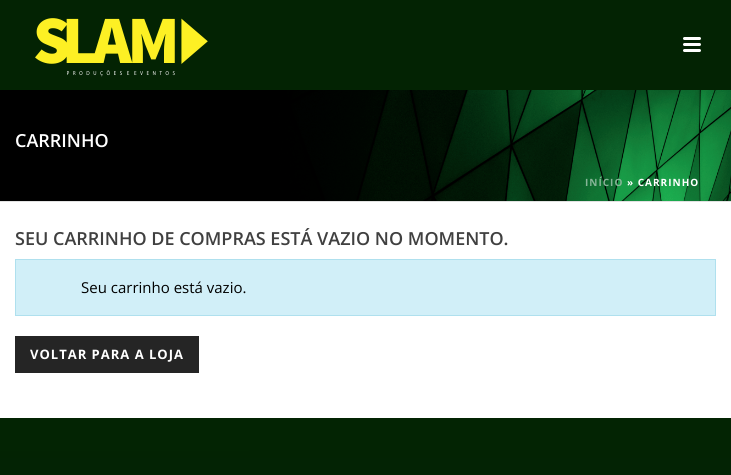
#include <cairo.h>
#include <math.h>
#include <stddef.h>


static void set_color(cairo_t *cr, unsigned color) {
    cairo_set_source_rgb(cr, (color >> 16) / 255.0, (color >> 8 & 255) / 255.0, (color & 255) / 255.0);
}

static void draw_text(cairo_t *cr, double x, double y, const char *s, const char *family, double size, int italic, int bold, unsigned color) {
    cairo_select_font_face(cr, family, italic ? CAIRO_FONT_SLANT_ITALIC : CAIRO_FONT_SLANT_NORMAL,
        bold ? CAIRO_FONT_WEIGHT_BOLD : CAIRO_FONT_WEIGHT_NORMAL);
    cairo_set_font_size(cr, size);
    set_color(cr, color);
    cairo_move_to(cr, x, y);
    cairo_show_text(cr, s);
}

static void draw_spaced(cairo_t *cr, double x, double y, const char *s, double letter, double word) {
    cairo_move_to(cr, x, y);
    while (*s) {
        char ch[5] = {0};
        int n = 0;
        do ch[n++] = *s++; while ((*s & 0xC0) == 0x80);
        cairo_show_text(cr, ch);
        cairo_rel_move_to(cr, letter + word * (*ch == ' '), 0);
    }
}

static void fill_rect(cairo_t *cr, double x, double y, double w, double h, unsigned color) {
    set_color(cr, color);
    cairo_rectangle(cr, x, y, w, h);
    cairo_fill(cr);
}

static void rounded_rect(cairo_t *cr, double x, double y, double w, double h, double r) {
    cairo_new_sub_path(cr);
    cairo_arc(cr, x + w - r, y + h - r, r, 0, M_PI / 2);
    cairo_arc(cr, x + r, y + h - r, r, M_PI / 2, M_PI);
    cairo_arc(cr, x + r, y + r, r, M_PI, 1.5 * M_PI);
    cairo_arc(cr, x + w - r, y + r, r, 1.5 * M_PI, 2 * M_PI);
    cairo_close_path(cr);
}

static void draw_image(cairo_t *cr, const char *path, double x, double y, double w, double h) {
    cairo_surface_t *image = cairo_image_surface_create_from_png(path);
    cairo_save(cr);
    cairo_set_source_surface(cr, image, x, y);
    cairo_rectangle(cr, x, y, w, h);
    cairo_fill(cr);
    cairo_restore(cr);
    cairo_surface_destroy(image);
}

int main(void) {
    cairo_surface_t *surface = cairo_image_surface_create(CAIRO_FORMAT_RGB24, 731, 475);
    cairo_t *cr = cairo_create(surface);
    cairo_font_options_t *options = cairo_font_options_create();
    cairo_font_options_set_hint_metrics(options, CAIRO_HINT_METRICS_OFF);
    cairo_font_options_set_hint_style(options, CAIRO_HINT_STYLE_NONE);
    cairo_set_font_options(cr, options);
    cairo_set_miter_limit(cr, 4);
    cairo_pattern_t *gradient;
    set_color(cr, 0xFFFFFF);
    cairo_paint(cr);
    draw_image(cr, "assets/img1.png", 0, 90, 731, 111);
    fill_rect(cr, 0, 201, 731, 1, 0xE2E2E2);
    fill_rect(cr, 0, 0, 731, 90, 0x032303);
    draw_image(cr, "assets/img2.png", 35, 18, 173, 59);
    set_color(cr, 0xFFFFFF);
    rounded_rect(cr, 683, 37, 18, 3, 1.5);
    cairo_fill(cr);
    rounded_rect(cr, 683, 43, 18, 3, 1.5);
    cairo_fill(cr);
    rounded_rect(cr, 683, 49, 18, 3, 1.5);
    cairo_fill(cr);
    draw_text(cr, 15, 147, "CARRINHO", "Open Sans SemiBold", 18, 0, 0, 0xFFFFFF);
    cairo_select_font_face(cr, "Open Sans", CAIRO_FONT_SLANT_NORMAL, CAIRO_FONT_WEIGHT_BOLD);
    cairo_set_font_size(cr, 10);
    set_color(cr, 0x86B597);
    draw_spaced(cr, 585, 186, "INÍCIO", 1, 0);
    set_color(cr, 0xFFFFFF);
    draw_spaced(cr, 627, 186, "» CARRINHO", 1, 0);
    draw_text(cr, 15, 245, "SEU CARRINHO DE COMPRAS ESTÁ VAZIO NO MOMENTO.", "Open Sans SemiBold", 18, 0, 0, 0x404040);
    set_color(cr, 0xD1EFF8);
    cairo_rectangle(cr, 15.5, 259.5, 700, 56);
    cairo_fill_preserve(cr);
    set_color(cr, 0xAFE0EE);
    cairo_set_line_width(cr, 1);
    cairo_stroke(cr);
    draw_text(cr, 81, 293, "Seu carrinho está vazio.", "Open Sans", 15, 0, 0, 0x000000);
    fill_rect(cr, 15, 336, 184, 37, 0x252525);
    cairo_select_font_face(cr, "Open Sans", CAIRO_FONT_SLANT_NORMAL, CAIRO_FONT_WEIGHT_BOLD);
    cairo_set_font_size(cr, 13);
    set_color(cr, 0xFFFFFF);
    draw_spaced(cr, 30, 359, "VOLTAR PARA A LOJA", 1, 0);
    gradient = cairo_pattern_create_linear(365, 418, 366, 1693);
    cairo_pattern_add_color_stop_rgba(gradient, 0, 0.012, 0.141, 0.012, 1);
    cairo_pattern_add_color_stop_rgba(gradient, 1, 0.016, 0.071, 0.067, 1);
    cairo_set_source(cr, gradient);
    cairo_pattern_destroy(gradient);
    cairo_rectangle(cr, 0, 418, 731, 57);
    cairo_fill(cr);
    cairo_surface_write_to_png(surface, "output.png");
    cairo_font_options_destroy(options);
    cairo_destroy(cr);
    cairo_surface_destroy(surface);
    return 0;
}
